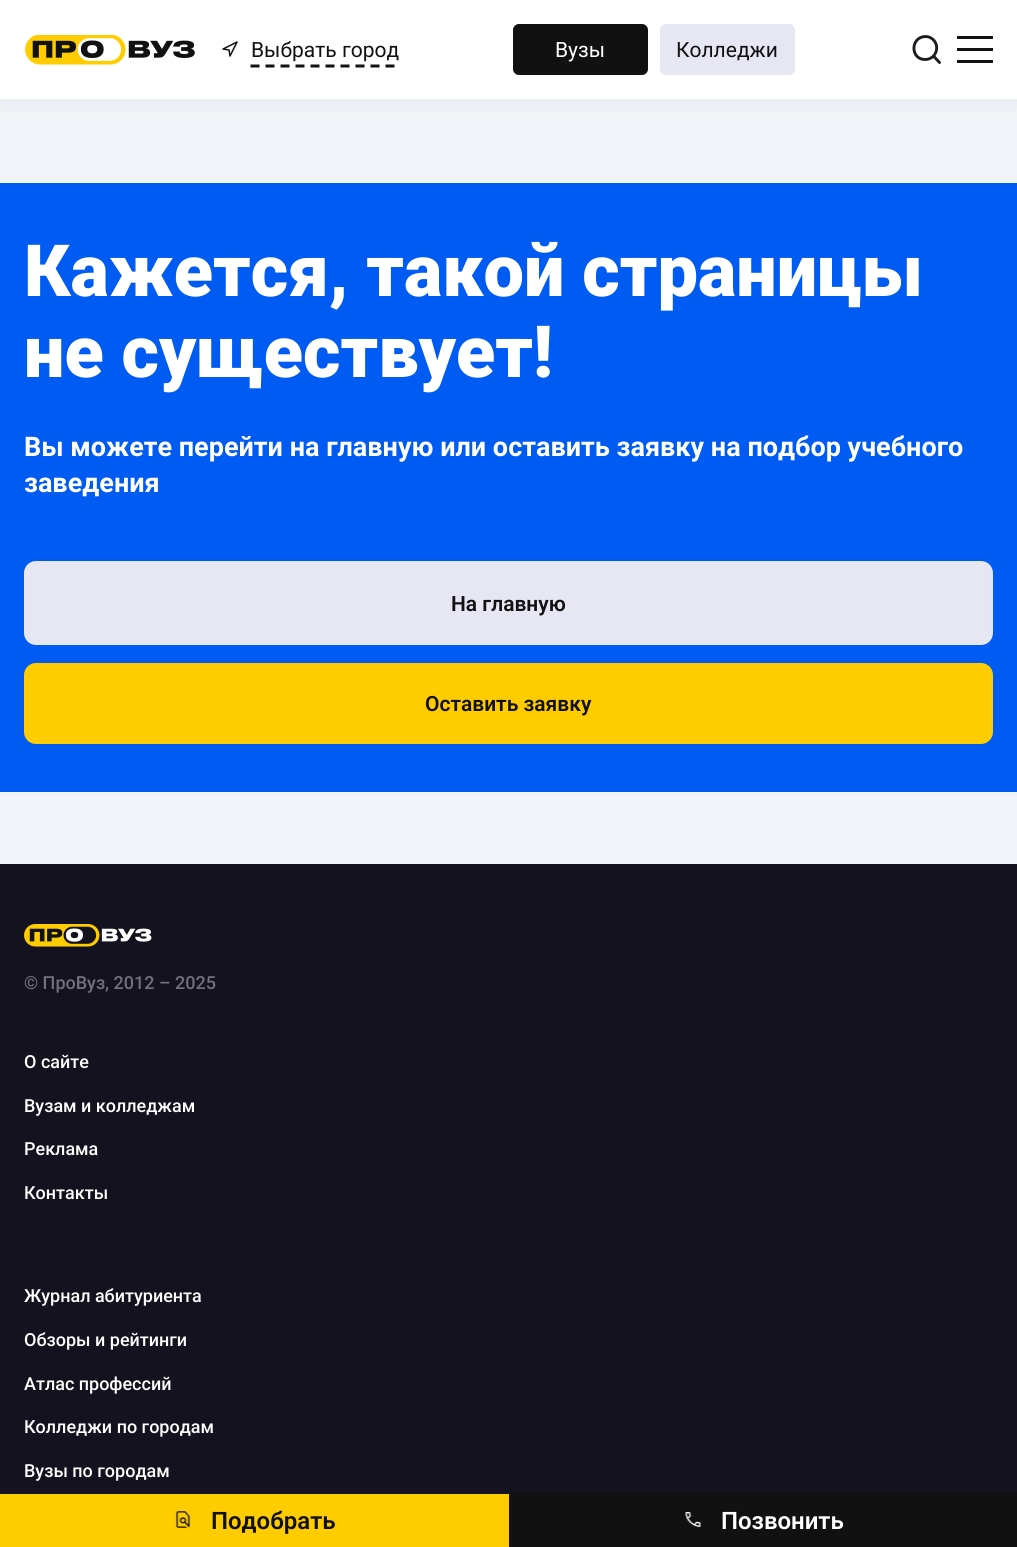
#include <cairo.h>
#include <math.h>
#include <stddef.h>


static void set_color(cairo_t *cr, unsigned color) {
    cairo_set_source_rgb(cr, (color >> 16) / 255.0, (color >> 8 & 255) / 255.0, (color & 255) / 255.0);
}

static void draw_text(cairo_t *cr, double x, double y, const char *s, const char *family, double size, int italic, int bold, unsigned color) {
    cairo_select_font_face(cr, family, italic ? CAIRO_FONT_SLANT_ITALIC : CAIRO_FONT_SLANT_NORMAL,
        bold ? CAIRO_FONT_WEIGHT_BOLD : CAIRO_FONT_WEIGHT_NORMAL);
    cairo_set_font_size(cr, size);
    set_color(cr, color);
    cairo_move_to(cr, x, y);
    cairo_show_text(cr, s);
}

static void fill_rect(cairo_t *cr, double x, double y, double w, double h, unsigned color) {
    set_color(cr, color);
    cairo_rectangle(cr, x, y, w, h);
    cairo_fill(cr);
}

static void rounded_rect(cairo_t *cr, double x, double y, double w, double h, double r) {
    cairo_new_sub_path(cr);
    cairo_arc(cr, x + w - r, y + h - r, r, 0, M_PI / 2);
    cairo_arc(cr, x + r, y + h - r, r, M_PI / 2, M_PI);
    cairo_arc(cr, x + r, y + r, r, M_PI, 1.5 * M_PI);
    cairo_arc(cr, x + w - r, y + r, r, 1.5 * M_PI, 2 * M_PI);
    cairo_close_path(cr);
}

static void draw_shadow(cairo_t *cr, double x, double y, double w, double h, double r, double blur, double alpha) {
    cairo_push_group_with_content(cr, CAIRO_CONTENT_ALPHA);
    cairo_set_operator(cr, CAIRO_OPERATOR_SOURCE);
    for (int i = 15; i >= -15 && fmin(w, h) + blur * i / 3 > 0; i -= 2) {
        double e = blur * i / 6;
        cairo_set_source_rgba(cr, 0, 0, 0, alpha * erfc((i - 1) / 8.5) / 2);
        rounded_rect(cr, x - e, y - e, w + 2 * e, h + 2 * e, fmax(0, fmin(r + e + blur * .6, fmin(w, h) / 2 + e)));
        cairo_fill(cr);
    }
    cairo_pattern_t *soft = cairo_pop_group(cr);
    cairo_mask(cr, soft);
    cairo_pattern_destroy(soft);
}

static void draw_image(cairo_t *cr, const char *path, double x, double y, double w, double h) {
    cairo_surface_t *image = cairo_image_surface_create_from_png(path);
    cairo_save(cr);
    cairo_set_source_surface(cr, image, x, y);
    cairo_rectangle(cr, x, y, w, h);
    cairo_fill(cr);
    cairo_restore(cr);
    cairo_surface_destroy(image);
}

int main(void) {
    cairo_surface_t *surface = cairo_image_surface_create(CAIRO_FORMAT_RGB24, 1017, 1547);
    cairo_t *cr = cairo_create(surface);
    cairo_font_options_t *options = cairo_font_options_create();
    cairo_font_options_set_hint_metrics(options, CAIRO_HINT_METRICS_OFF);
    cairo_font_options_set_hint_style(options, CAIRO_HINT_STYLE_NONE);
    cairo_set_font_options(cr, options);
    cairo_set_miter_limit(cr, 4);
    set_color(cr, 0xF1F5F9);
    cairo_paint(cr);
    set_color(cr, 0xCCCCCC);
    draw_shadow(cr, 0, 6, 1017, 99, 0, 12, 0.25);
    fill_rect(cr, 0, 0, 1017, 99, 0xFFFFFF);
    draw_image(cr, "assets/img1.png", 25, 35, 170, 30);
    cairo_new_path(cr);
    cairo_move_to(cr, 223, 49);
    cairo_line_to(cr, 237, 42);
    cairo_line_to(cr, 230, 56);
    cairo_line_to(cr, 229, 50);
    cairo_close_path(cr);
    set_color(cr, 0x111111);
    cairo_set_line_width(cr, 1.5);
    cairo_set_line_cap(cr, CAIRO_LINE_CAP_ROUND);
    cairo_set_line_join(cr, CAIRO_LINE_JOIN_ROUND);
    cairo_stroke(cr);
    draw_text(cr, 251, 57, "Выбрать город", "Roboto", 21, 0, 0, 0x111111);
    cairo_new_path(cr);
    cairo_move_to(cr, 250.5, 66);
    cairo_line_to(cr, 398.5, 66);
    cairo_set_line_width(cr, 3);
    cairo_set_line_cap(cr, CAIRO_LINE_CAP_BUTT);
    cairo_set_line_join(cr, CAIRO_LINE_JOIN_MITER);
    cairo_set_dash(cr, (double[]){9, 6}, 2, 0);
    cairo_stroke(cr);
    rounded_rect(cr, 513, 24, 135, 51, 6);
    cairo_fill(cr);
    draw_text(cr, 555, 57, "Вузы", "Roboto", 21, 0, 0, 0xFFFFFF);
    set_color(cr, 0xE7E7F3);
    rounded_rect(cr, 660, 24, 135, 51, 6);
    cairo_fill(cr);
    draw_text(cr, 676, 57, "Колледжи", "Roboto", 21, 0, 0, 0x111111);
    cairo_new_path(cr);
    cairo_move_to(cr, 925, 59.5);
    cairo_curve_to(cr, 937, 59.5, 941, 44, 931, 38);
    cairo_curve_to(cr, 929.5, 37, 927, 36.5, 925, 36.5);
    cairo_curve_to(cr, 910, 37.5, 910.5, 59.5, 925, 59.5);
    cairo_close_path(cr);
    cairo_move_to(cr, 939.5, 62.5);
    cairo_line_to(cr, 933.5, 56);
    set_color(cr, 0x1C1B1F);
    cairo_set_line_width(cr, 2.9);
    cairo_set_line_cap(cr, CAIRO_LINE_CAP_ROUND);
    cairo_set_line_join(cr, CAIRO_LINE_JOIN_ROUND);
    cairo_set_dash(cr, NULL, 0, 0);
    cairo_stroke(cr);
    set_color(cr, 0x111111);
    cairo_new_path(cr);
    cairo_move_to(cr, 957, 36);
    cairo_line_to(cr, 993, 36);
    cairo_line_to(cr, 993, 39);
    cairo_line_to(cr, 957, 39);
    cairo_close_path(cr);
    cairo_move_to(cr, 957, 48);
    cairo_line_to(cr, 993, 48);
    cairo_line_to(cr, 993, 51);
    cairo_line_to(cr, 957, 51);
    cairo_close_path(cr);
    cairo_move_to(cr, 957, 60);
    cairo_line_to(cr, 993, 60);
    cairo_line_to(cr, 993, 63);
    cairo_line_to(cr, 957, 63);
    cairo_close_path(cr);
    cairo_fill(cr);
    fill_rect(cr, 0, 183, 1017, 609, 0x005BF2);
    draw_text(cr, 24, 296, "Кажется, такой страницы", "Roboto Black", 72, 0, 0, 0xFFFFFF);
    draw_text(cr, 24, 377, "не существует!", "Roboto Black", 72, 0, 0, 0xFFFFFF);
    draw_text(cr, 24, 456, "Вы можете перейти на главную или оставить заявку на подбор учебного", "Roboto", 27, 0, 1, 0xFFFFFF);
    draw_text(cr, 24, 492, "заведения", "Roboto", 27, 0, 1, 0xFFFFFF);
    set_color(cr, 0xE7E7F3);
    rounded_rect(cr, 25, 562, 967, 82, 11);
    cairo_fill_preserve(cr);
    cairo_set_line_width(cr, 2);
    cairo_set_line_cap(cr, CAIRO_LINE_CAP_BUTT);
    cairo_set_line_join(cr, CAIRO_LINE_JOIN_MITER);
    cairo_stroke(cr);
    draw_text(cr, 451, 611, "На главную", "Roboto SemiBold", 21, 0, 0, 0x111111);
    set_color(cr, 0xFFCC00);
    rounded_rect(cr, 24, 663, 969, 81, 12);
    cairo_fill(cr);
    draw_text(cr, 425, 711, "Оставить заявку", "Roboto SemiBold", 21, 0, 0, 0x111111);
    fill_rect(cr, 0, 864, 1017, 630, 0x14121E);
    draw_image(cr, "assets/img2.png", 24, 924, 128, 23);
    draw_text(cr, 24, 989, "© ПроВуз, 2012 – 2025", "Roboto Medium", 18, 0, 0, 0x727178);
    draw_text(cr, 24, 1068, "О сайте", "Roboto Medium", 18, 0, 0, 0xFFFFFF);
    draw_text(cr, 24, 1112, "Вузам и колледжам", "Roboto Medium", 18, 0, 0, 0xFFFFFF);
    draw_text(cr, 24, 1155, "Реклама", "Roboto Medium", 18, 0, 0, 0xFFFFFF);
    draw_text(cr, 24, 1199, "Контакты", "Roboto Medium", 18, 0, 0, 0xFFFFFF);
    draw_text(cr, 24, 1302, "Журнал абитуриента", "Roboto Medium", 18, 0, 0, 0xFFFFFF);
    draw_text(cr, 24, 1346, "Обзоры и рейтинги", "Roboto Medium", 18, 0, 0, 0xFFFFFF);
    draw_text(cr, 24, 1390, "Атлас профессий", "Roboto Medium", 18, 0, 0, 0xFFFFFF);
    draw_text(cr, 24, 1433, "Колледжи по городам", "Roboto Medium", 18, 0, 0, 0xFFFFFF);
    draw_text(cr, 24, 1477, "Вузы по городам", "Roboto Medium", 18, 0, 0, 0xFFFFFF);
    fill_rect(cr, 0, 1494, 509, 53, 0xFFCC00);
    draw_image(cr, "assets/img3.png", 175, 1511, 16, 17);
    draw_text(cr, 211, 1529, "Подобрать", "Roboto SemiBold", 24, 0, 0, 0x111111);
    fill_rect(cr, 509, 1494, 508, 53, 0x111111);
    draw_image(cr, "assets/img4.png", 685, 1512, 16, 15);
    draw_text(cr, 721, 1529, "Позвонить", "Roboto SemiBold", 24, 0, 0, 0xFFFFFF);
    cairo_surface_write_to_png(surface, "output.png");
    cairo_font_options_destroy(options);
    cairo_destroy(cr);
    cairo_surface_destroy(surface);
    return 0;
}
